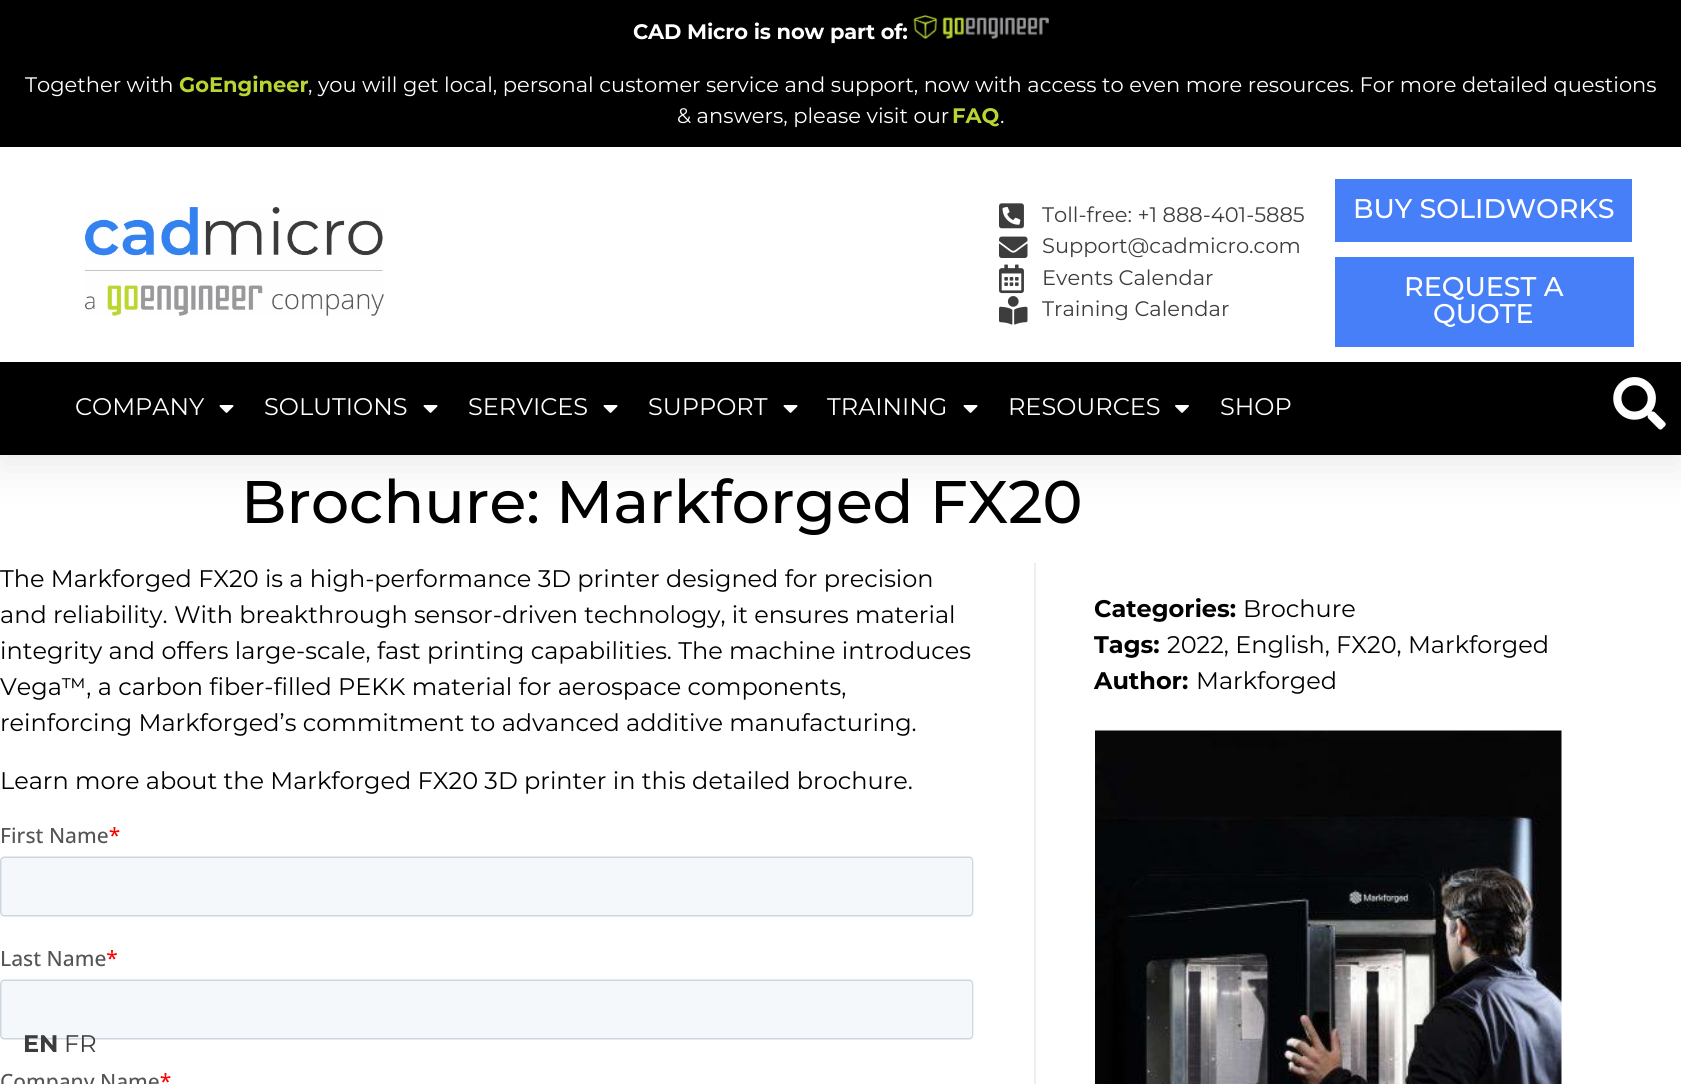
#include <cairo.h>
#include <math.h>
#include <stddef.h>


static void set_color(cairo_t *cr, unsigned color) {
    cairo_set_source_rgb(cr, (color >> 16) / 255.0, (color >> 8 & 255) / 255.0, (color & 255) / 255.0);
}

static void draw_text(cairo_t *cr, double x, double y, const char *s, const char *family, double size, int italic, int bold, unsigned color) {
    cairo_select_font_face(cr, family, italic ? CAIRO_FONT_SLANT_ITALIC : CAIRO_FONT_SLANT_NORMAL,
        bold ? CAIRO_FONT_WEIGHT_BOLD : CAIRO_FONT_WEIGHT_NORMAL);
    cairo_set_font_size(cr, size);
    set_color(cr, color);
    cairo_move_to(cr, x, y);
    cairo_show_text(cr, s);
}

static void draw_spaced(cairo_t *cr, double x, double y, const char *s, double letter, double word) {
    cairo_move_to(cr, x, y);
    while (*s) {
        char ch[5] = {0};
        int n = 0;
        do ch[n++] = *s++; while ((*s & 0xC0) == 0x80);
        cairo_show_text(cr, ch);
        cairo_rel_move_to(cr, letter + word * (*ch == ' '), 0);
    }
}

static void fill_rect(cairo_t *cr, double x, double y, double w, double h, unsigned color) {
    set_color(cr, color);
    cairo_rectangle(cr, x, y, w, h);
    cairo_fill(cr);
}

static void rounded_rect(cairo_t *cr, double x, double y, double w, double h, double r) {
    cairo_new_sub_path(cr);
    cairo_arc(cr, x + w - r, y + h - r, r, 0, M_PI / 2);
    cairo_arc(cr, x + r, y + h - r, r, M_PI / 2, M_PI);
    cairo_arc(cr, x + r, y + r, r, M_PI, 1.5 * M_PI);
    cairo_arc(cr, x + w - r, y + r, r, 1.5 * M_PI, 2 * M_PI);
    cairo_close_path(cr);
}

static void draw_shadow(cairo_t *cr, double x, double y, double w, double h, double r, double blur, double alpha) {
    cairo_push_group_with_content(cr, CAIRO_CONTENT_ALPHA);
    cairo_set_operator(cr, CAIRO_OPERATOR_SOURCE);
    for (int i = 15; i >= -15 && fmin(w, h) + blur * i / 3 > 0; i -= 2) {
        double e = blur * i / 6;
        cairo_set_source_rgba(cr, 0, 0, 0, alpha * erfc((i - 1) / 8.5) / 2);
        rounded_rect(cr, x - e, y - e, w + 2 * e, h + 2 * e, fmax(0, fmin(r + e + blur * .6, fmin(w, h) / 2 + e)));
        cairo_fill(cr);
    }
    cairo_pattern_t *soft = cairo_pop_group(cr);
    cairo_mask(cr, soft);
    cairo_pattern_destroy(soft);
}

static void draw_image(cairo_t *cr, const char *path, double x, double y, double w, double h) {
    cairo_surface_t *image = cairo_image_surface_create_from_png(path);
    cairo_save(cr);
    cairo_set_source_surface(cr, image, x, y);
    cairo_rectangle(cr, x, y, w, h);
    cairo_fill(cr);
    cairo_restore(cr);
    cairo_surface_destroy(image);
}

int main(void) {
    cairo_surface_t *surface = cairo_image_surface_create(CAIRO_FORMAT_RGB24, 1681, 1084);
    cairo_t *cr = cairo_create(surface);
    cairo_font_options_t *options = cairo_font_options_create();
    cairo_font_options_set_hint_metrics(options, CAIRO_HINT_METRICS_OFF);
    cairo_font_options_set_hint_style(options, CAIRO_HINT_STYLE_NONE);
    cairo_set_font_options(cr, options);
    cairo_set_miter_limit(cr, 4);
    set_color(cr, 0xFFFFFF);
    cairo_paint(cr);
    set_color(cr, 0x000000);
    draw_shadow(cr, 0, 8, 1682, 454, 0, 22.5, 0.1);
    fill_rect(cr, 0, 147, 1681, 215, 0xFFFFFF);
    fill_rect(cr, 0, 0, 1681, 147, 0x000000);
    cairo_select_font_face(cr, "Montserrat", CAIRO_FONT_SLANT_NORMAL, CAIRO_FONT_WEIGHT_BOLD);
    cairo_set_font_size(cr, 21);
    set_color(cr, 0xFFFFFF);
    draw_spaced(cr, 633, 39, "CAD Micro is now part of:", -0.15, 0);
    draw_image(cr, "assets/img1.png", 913, 15, 136, 24);
    draw_text(cr, 25, 92, "Together with", "Montserrat", 21, 0, 0, 0xFFFFFF);
    draw_text(cr, 179, 92, "GoEngineer", "Montserrat", 21, 0, 1, 0xBAD532);
    draw_text(cr, 308, 92, ", you will get local, personal customer service and support, now with access to even more resources. For more detailed questions", "Montserrat", 21, 0, 0, 0xFFFFFF);
    draw_text(cr, 677, 123, "& answers, please visit our", "Montserrat", 21, 0, 0, 0xFFFFFF);
    draw_text(cr, 952, 123, "FAQ", "Montserrat", 21, 0, 1, 0xBAD532);
    draw_text(cr, 1000, 123, ".", "Montserrat", 21, 0, 0, 0xFFFFFF);
    draw_image(cr, "assets/img2.png", 84, 207, 300, 109);
    draw_image(cr, "assets/img3.png", 999, 203, 25, 26);
    draw_text(cr, 1042, 222, "Toll-free: +1 888-401-5885", "Montserrat", 21, 0, 0, 0x3D3D3D);
    draw_image(cr, "assets/img4.png", 999, 236, 29, 22);
    draw_text(cr, 1042, 253, "Support@cadmicro.com", "Montserrat", 21, 0, 0, 0x3D3D3D);
    draw_image(cr, "assets/img5.png", 999, 264, 25, 30);
    draw_text(cr, 1042, 285, "Events Calendar", "Montserrat", 21, 0, 0, 0x3D3D3D);
    draw_image(cr, "assets/img6.png", 999, 296, 29, 29);
    draw_text(cr, 1042, 316, "Training Calendar", "Montserrat", 21, 0, 0, 0x3D3D3D);
    fill_rect(cr, 1335, 179, 297, 63, 0x467FF7);
    draw_text(cr, 1353, 218, "BUY SOLIDWORKS", "Montserrat Medium", 27, 0, 0, 0xFFFFFF);
    fill_rect(cr, 1335, 257, 299, 90, 0x467FF7);
    draw_text(cr, 1404, 296, "REQUEST A", "Montserrat Medium", 27, 0, 0, 0xFFFFFF);
    draw_text(cr, 1433, 323, "QUOTE", "Montserrat Medium", 27, 0, 0, 0xFFFFFF);
    fill_rect(cr, 0, 362, 1681, 93, 0x000000);
    draw_text(cr, 75, 415, "COMPANY", "Montserrat", 24, 0, 0, 0xFFFFFF);
    draw_image(cr, "assets/img7.png", 219, 405, 15, 8);
    draw_text(cr, 264, 415, "SOLUTIONS", "Montserrat", 24, 0, 0, 0xFFFFFF);
    draw_image(cr, "assets/img7.png", 423, 405, 15, 8);
    draw_text(cr, 468, 415, "SERVICES", "Montserrat", 24, 0, 0, 0xFFFFFF);
    draw_image(cr, "assets/img7.png", 603, 405, 15, 8);
    draw_text(cr, 648, 415, "SUPPORT", "Montserrat", 24, 0, 0, 0xFFFFFF);
    draw_image(cr, "assets/img7.png", 783, 405, 15, 8);
    draw_text(cr, 827, 415, "TRAINING", "Montserrat", 24, 0, 0, 0xFFFFFF);
    draw_image(cr, "assets/img7.png", 963, 405, 15, 8);
    draw_text(cr, 1008, 415, "RESOURCES", "Montserrat", 24, 0, 0, 0xFFFFFF);
    draw_image(cr, "assets/img8.png", 1175, 405, 14, 8);
    draw_text(cr, 1220, 415, "SHOP", "Montserrat", 24, 0, 0, 0xFFFFFF);
    draw_image(cr, "assets/img9.png", 1613, 377, 53, 53);
    draw_text(cr, 241, 523, "Brochure: Markforged FX20", "Montserrat Medium", 60, 0, 0, 0x000000);
    draw_text(cr, 0, 587, "The Markforged FX20 is a high-performance 3D printer designed for precision", "Montserrat", 24, 0, 0, 0x000000);
    draw_text(cr, 0, 623, "and reliability. With breakthrough sensor-driven technology, it ensures material", "Montserrat", 24, 0, 0, 0x000000);
    draw_text(cr, 0, 659, "integrity and offers large-scale, fast printing capabilities. The machine introduces", "Montserrat", 24, 0, 0, 0x000000);
    draw_text(cr, 0, 695, "Vega™, a carbon fiber-filled PEKK material for aerospace components,", "Montserrat", 24, 0, 0, 0x000000);
    draw_text(cr, 0, 731, "reinforcing Markforged’s commitment to advanced additive manufacturing.", "Montserrat", 24, 0, 0, 0x000000);
    draw_text(cr, 0, 789, "Learn more about the Markforged FX20 3D printer in this detailed brochure.", "Montserrat", 24, 0, 0, 0x000000);
    draw_image(cr, "assets/img10.png", 0, 827, 974, 257);
    fill_rect(cr, 1034, 563, 2, 521, 0xEEEEEE);
    draw_text(cr, 1094, 617, "Categories:", "Montserrat", 24, 0, 1, 0x000000);
    draw_text(cr, 1243, 617, "Brochure", "Montserrat", 24, 0, 0, 0x000000);
    draw_text(cr, 1094, 653, "Tags:", "Montserrat", 24, 0, 1, 0x000000);
    draw_text(cr, 1167, 653, "2022, English, FX20, Markforged", "Montserrat", 24, 0, 0, 0x000000);
    draw_text(cr, 1094, 689, "Author:", "Montserrat", 24, 0, 1, 0x000000);
    draw_text(cr, 1196, 689, "Markforged", "Montserrat", 24, 0, 0, 0x000000);
    draw_image(cr, "assets/img11.png", 1095, 730, 467, 354);
    draw_text(cr, 23, 1052, "EN", "Montserrat", 24, 0, 1, 0x3D3D3D);
    draw_text(cr, 64, 1052, "FR", "Montserrat", 24, 0, 0, 0x3D3D3D);
    cairo_surface_write_to_png(surface, "output.png");
    cairo_font_options_destroy(options);
    cairo_destroy(cr);
    cairo_surface_destroy(surface);
    return 0;
}
